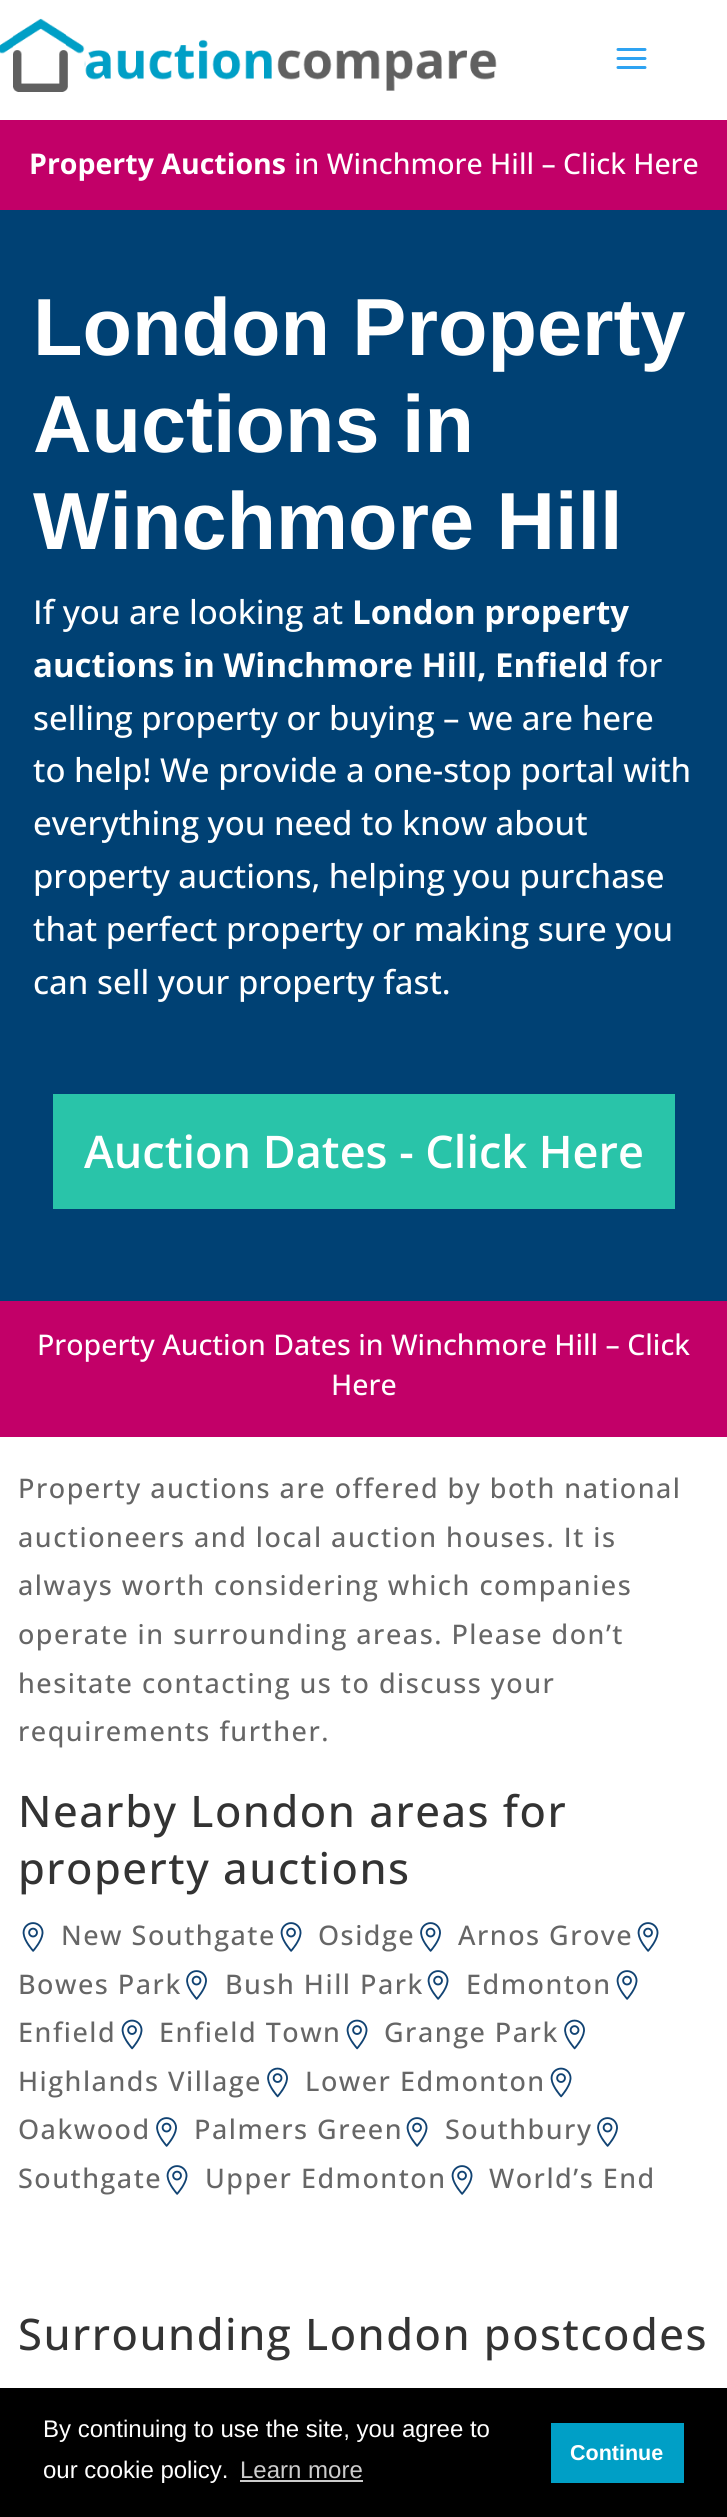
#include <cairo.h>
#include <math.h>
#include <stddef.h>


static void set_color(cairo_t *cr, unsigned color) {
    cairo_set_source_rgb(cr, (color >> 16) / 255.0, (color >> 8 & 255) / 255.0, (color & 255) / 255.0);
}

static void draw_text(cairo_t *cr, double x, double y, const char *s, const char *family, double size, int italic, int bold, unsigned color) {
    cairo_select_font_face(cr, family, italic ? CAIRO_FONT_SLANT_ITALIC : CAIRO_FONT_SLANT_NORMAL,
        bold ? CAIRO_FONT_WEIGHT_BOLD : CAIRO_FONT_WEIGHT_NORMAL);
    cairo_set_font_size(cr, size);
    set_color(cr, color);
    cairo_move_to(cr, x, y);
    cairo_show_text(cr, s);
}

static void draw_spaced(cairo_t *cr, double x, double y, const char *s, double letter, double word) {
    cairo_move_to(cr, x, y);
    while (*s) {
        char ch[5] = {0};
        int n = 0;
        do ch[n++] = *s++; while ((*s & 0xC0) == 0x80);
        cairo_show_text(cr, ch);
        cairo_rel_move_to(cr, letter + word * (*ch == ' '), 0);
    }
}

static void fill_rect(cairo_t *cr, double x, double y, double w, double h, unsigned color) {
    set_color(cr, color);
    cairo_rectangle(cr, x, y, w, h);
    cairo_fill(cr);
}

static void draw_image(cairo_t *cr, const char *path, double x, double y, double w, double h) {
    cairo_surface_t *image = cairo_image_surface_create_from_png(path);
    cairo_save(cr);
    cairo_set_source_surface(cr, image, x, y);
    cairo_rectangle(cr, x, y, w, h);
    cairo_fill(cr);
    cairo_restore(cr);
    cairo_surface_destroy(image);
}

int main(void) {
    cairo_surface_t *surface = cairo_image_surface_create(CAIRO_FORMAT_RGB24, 727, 2517);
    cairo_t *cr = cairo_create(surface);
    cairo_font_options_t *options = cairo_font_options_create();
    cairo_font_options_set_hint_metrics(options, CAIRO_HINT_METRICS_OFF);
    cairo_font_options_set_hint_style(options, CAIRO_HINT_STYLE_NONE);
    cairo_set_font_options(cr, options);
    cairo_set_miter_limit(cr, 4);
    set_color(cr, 0xFFFFFF);
    cairo_paint(cr);
    draw_image(cr, "assets/img1.png", 0, 18, 497, 74);
    draw_image(cr, "assets/img2.png", 616, 48, 31, 21);
    fill_rect(cr, 0, 120, 727, 90, 0xC20068);
    draw_text(cr, 29, 174, "Property Auctions", "Open Sans", 28.5, 0, 1, 0xFFFFFF);
    draw_text(cr, 294, 174, "in Winchmore Hill – Click Here", "Open Sans Medium", 28.5, 0, 0, 0xFFFFFF);
    fill_rect(cr, 0, 210, 727, 1091, 0x004174);
    draw_text(cr, 33, 355, "London Property", "Liberation Sans", 81, 0, 1, 0xFFFFFF);
    draw_text(cr, 33, 452, "Auctions in", "Liberation Sans", 81, 0, 1, 0xFFFFFF);
    draw_text(cr, 33, 549, "Winchmore Hill", "Liberation Sans", 81, 0, 1, 0xFFFFFF);
    draw_text(cr, 33, 624, "If you are looking at", "Open Sans Medium", 33, 0, 0, 0xFFFFFF);
    draw_text(cr, 352, 624, "London property", "Open Sans", 33, 0, 1, 0xFFFFFF);
    draw_text(cr, 33, 677, "auctions in Winchmore Hill, Enfield", "Open Sans", 33, 0, 1, 0xFFFFFF);
    draw_text(cr, 617, 677, "for", "Open Sans Medium", 33, 0, 0, 0xFFFFFF);
    draw_text(cr, 33, 730, "selling property or buying – we are here", "Open Sans Medium", 33, 0, 0, 0xFFFFFF);
    draw_text(cr, 33, 782, "to help! We provide a one-stop portal with", "Open Sans Medium", 33, 0, 0, 0xFFFFFF);
    draw_text(cr, 33, 835, "everything you need to know about", "Open Sans Medium", 33, 0, 0, 0xFFFFFF);
    draw_text(cr, 33, 888, "property auctions, helping you purchase", "Open Sans Medium", 33, 0, 0, 0xFFFFFF);
    draw_text(cr, 33, 941, "that perfect property or making sure you", "Open Sans Medium", 33, 0, 0, 0xFFFFFF);
    draw_text(cr, 33, 994, "can sell your property fast.", "Open Sans Medium", 33, 0, 0, 0xFFFFFF);
    fill_rect(cr, 53, 1094, 622, 115, 0x29C4A9);
    draw_text(cr, 84, 1168, "Auction Dates - Click Here", "Open Sans SemiBold", 45, 0, 0, 0xFFFFFF);
    fill_rect(cr, 0, 1301, 727, 136, 0xC20068);
    draw_text(cr, 37, 1355, "Property Auction Dates in Winchmore Hill – Click", "Open Sans Medium", 28.5, 0, 0, 0xFFFFFF);
    draw_text(cr, 331, 1395, "Here", "Open Sans Medium", 28.5, 0, 0, 0xFFFFFF);
    cairo_set_font_size(cr, 27);
    set_color(cr, 0x666666);
    draw_spaced(cr, 18, 1498, "Property auctions are offered by both national", 1.5, 0);
    draw_spaced(cr, 18, 1547, "auctioneers and local auction houses. It is", 1.5, 0);
    draw_spaced(cr, 18, 1595, "always worth considering which companies", 1.5, 0);
    draw_spaced(cr, 18, 1644, "operate in surrounding areas. Please don’t", 1.5, 0);
    draw_spaced(cr, 18, 1693, "hesitate contacting us to discuss your", 1.5, 0);
    draw_spaced(cr, 18, 1741, "requirements further.", 1.5, 0);
    cairo_set_font_size(cr, 43.5);
    set_color(cr, 0x333333);
    draw_spaced(cr, 18, 1827, "Nearby London areas for", 1.5, 0);
    draw_spaced(cr, 18, 1884, "property auctions", 1.5, 0);
    draw_image(cr, "assets/img3.png", 22, 1922, 22, 30);
    cairo_set_font_size(cr, 27);
    set_color(cr, 0x666666);
    draw_spaced(cr, 61, 1945, "New Southgate", 1.5, 0);
    draw_image(cr, "assets/img3.png", 280, 1922, 22, 30);
    draw_spaced(cr, 318, 1945, "Osidge", 1.5, 0);
    draw_image(cr, "assets/img4.png", 420, 1922, 21, 30);
    draw_spaced(cr, 458, 1945, "Arnos Grove", 1.5, 0);
    draw_image(cr, "assets/img3.png", 637, 1922, 22, 30);
    draw_spaced(cr, 18, 1994, "Bowes Park", 1.5, 0);
    draw_image(cr, "assets/img4.png", 186, 1970, 21, 30);
    draw_spaced(cr, 225, 1994, "Bush Hill Park", 1.5, 0);
    draw_image(cr, "assets/img3.png", 427, 1970, 22, 30);
    draw_spaced(cr, 466, 1994, "Edmonton", 1.5, 0);
    draw_image(cr, "assets/img3.png", 616, 1970, 22, 30);
    draw_spaced(cr, 18, 2042, "Enfield", 1.5, 0);
    draw_image(cr, "assets/img5.png", 121, 2019, 22, 31);
    draw_spaced(cr, 159, 2042, "Enfield Town", 1.5, 0);
    draw_image(cr, "assets/img5.png", 346, 2019, 22, 31);
    draw_spaced(cr, 384, 2042, "Grange Park", 1.5, 0);
    draw_image(cr, "assets/img6.png", 564, 2019, 21, 31);
    draw_spaced(cr, 18, 2091, "Highlands Village", 1.5, 0);
    draw_image(cr, "assets/img6.png", 267, 2067, 21, 31);
    draw_spaced(cr, 305, 2091, "Lower Edmonton", 1.5, 0);
    draw_image(cr, "assets/img5.png", 550, 2067, 22, 31);
    draw_spaced(cr, 18, 2139, "Oakwood", 1.5, 0);
    draw_image(cr, "assets/img4.png", 156, 2117, 21, 30);
    draw_spaced(cr, 194, 2139, "Palmers Green", 1.5, 0);
    draw_image(cr, "assets/img3.png", 406, 2117, 22, 30);
    draw_spaced(cr, 445, 2139, "Southbury", 1.5, 0);
    draw_image(cr, "assets/img4.png", 597, 2117, 21, 30);
    draw_spaced(cr, 18, 2188, "Southgate", 1.5, 0);
    draw_image(cr, "assets/img3.png", 166, 2165, 22, 30);
    draw_spaced(cr, 205, 2188, "Upper Edmonton", 1.5, 0);
    draw_image(cr, "assets/img3.png", 451, 2165, 22, 30);
    draw_spaced(cr, 489, 2188, "World’s End", 1.5, 0);
    cairo_set_font_size(cr, 43.5);
    set_color(cr, 0x333333);
    draw_spaced(cr, 18, 2350, "Surrounding London postcodes", 1.5, 0);
    fill_rect(cr, 0, 2388, 727, 129, 0x000000);
    draw_text(cr, 43, 2437, "By continuing to use the site, you agree to", "Liberation Sans", 24, 0, 0, 0xFFFFFF);
    draw_text(cr, 43, 2478, "our cookie policy.", "Liberation Sans", 24, 0, 0, 0xFFFFFF);
    draw_text(cr, 240, 2478, "Learn more", "Liberation Sans", 24, 0, 0, 0xCCCCCC);
    fill_rect(cr, 240, 2480, 123, 2, 0xCCCCCC);
    fill_rect(cr, 551, 2423, 133, 60, 0x009FC6);
    draw_text(cr, 570, 2460, "Continue", "Liberation Sans", 21.5, 0, 1, 0xFFFFFF);
    cairo_surface_write_to_png(surface, "output.png");
    cairo_font_options_destroy(options);
    cairo_destroy(cr);
    cairo_surface_destroy(surface);
    return 0;
}
